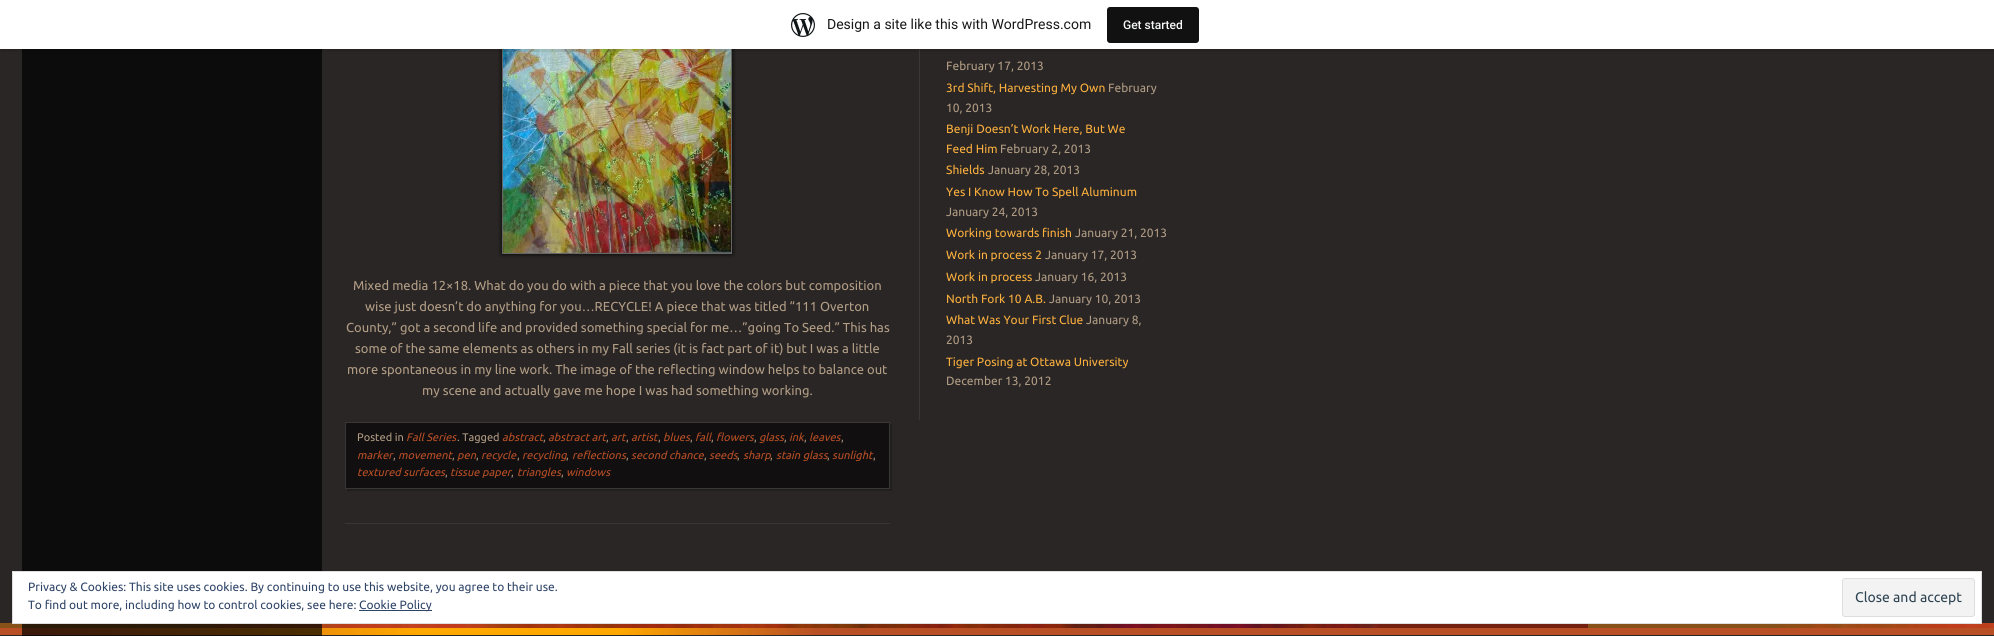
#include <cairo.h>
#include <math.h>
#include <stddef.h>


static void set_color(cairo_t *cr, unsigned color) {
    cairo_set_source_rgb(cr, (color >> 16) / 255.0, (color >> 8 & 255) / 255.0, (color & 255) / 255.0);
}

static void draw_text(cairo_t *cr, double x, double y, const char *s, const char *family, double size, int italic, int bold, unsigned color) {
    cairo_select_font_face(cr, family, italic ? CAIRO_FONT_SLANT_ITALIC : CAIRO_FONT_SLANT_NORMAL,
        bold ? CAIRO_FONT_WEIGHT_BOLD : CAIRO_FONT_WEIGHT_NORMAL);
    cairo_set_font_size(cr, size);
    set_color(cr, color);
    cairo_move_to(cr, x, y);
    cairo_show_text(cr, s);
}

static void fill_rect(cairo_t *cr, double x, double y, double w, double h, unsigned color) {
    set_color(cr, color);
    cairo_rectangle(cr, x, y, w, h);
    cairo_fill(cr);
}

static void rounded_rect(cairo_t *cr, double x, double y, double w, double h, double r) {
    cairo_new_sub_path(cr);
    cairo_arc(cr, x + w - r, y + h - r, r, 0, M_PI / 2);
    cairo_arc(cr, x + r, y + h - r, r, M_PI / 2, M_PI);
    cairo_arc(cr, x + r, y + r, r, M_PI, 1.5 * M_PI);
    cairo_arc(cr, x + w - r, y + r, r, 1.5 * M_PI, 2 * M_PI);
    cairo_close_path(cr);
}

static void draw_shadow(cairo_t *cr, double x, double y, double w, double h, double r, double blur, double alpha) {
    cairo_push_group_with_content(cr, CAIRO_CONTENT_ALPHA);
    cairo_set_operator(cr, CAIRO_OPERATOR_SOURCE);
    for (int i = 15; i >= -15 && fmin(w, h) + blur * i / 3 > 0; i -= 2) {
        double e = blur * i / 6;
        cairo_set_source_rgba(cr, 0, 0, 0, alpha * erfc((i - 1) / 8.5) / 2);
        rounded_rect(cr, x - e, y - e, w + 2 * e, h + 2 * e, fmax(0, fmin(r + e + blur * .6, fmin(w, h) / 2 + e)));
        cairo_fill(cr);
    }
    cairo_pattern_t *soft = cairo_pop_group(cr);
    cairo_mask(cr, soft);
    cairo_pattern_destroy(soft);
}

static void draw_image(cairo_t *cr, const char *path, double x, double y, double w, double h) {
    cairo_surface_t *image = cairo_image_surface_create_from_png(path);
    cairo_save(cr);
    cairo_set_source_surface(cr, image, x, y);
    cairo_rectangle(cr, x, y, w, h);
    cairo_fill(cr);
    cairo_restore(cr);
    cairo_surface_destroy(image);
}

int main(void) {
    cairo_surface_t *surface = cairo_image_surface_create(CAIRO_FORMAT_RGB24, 1994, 636);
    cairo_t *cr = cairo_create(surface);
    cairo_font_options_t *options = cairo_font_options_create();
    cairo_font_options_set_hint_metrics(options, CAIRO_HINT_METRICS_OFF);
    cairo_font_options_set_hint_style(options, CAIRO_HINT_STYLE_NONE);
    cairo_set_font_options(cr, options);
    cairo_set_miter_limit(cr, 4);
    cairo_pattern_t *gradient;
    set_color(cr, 0x292625);
    cairo_paint(cr);
    gradient = cairo_pattern_create_linear(0, 629, 1994, 629);
    cairo_pattern_add_color_stop_rgba(gradient, 0.01, 0.725, 0.31, 0.145, 1);
    cairo_pattern_add_color_stop_rgba(gradient, 0.21, 1, 0.659, 0, 1);
    cairo_pattern_add_color_stop_rgba(gradient, 0.31, 1, 0.659, 0, 1);
    cairo_pattern_add_color_stop_rgba(gradient, 0.41, 0.725, 0.31, 0.145, 1);
    cairo_set_source(cr, gradient);
    cairo_pattern_destroy(gradient);
    cairo_rectangle(cr, 0, 628, 1994, 7);
    cairo_fill(cr);
    draw_image(cr, "assets/img3.png", 0, 623, 1994, 5);
    cairo_set_source_rgba(cr, 0, 0, 0, 0.68);
    cairo_rectangle(cr, 22, 49, 300, 587);
    cairo_fill(cr);
    set_color(cr, 0x000000);
    draw_shadow(cr, 502, -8, 230, 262, 0, 2.5, 0.9);
    cairo_rectangle(cr, 502.5, -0.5, 229, 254);
    set_color(cr, 0x666666);
    cairo_set_line_width(cr, 1);
    cairo_stroke(cr);
    draw_image(cr, "assets/img2.png", 503, 49, 228, 204);
    fill_rect(cr, 919, 49, 1, 371, 0x393636);
    cairo_set_source_rgba(cr, 0, 0, 0, 0.08);
    cairo_new_path(cr);
    cairo_move_to(cr, 1, 49);
    cairo_line_to(cr, 1, 52);
    cairo_line_to(cr, 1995, 52);
    cairo_line_to(cr, 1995, 3);
    cairo_line_to(cr, 1994, 3);
    cairo_line_to(cr, 1994, 49);
    cairo_close_path(cr);
    cairo_fill(cr);
    fill_rect(cr, 0, 0, 1994, 49, 0xFFFFFF);
    draw_image(cr, "assets/img1.png", 791, 13, 24, 24);
    draw_text(cr, 827, 29, "Design a site like this with WordPress.com", "Roboto", 14, 0, 0, 0x171717);
    set_color(cr, 0x111111);
    rounded_rect(cr, 1107, 7, 92, 36, 3);
    cairo_fill(cr);
    draw_text(cr, 1123, 29, "Get started", "Roboto Medium", 12, 0, 0, 0xF6F7F7);
    fill_rect(cr, 345, 523, 545, 1, 0x393636);
    draw_text(cr, 353, 290, "Mixed media 12×18. What do you do with a piece that you love the colors but composition", "Ubuntu", 13, 0, 0, 0xB29D85);
    draw_text(cr, 365, 311, "wise just doesn’t do anything for you…RECYCLE! A piece that was titled “111 Overton", "Ubuntu", 13, 0, 0, 0xB29D85);
    draw_text(cr, 346, 332, "County,” got a second life and provided something special for me…”going To Seed.” This has", "Ubuntu", 13, 0, 0, 0xB29D85);
    draw_text(cr, 355, 353, "some of the same elements as others in my Fall series (it is fact part of it) but I was a little", "Ubuntu", 13, 0, 0, 0xB29D85);
    draw_text(cr, 347, 374, "more spontaneous in my line work. The image of the reflecting window helps to balance out", "Ubuntu", 13, 0, 0, 0xB29D85);
    draw_text(cr, 422, 395, "my scene and actually gave me hope I was had something working.", "Ubuntu", 13, 0, 0, 0xB29D85);
    set_color(cr, 0x211E1E);
    cairo_new_path(cr);
    cairo_move_to(cr, 347, 489);
    cairo_line_to(cr, 347, 491);
    cairo_line_to(cr, 892, 491);
    cairo_line_to(cr, 892, 424);
    cairo_line_to(cr, 890, 424);
    cairo_line_to(cr, 890, 489);
    cairo_close_path(cr);
    cairo_fill(cr);
    set_color(cr, 0x120F10);
    cairo_rectangle(cr, 345.5, 422.5, 544, 66);
    cairo_fill_preserve(cr);
    set_color(cr, 0x393636);
    cairo_stroke(cr);
    draw_text(cr, 357, 441, "Posted in", "Ubuntu", 11, 0, 0, 0xB29D85);
    draw_text(cr, 406, 441, "Fall Series", "Ubuntu", 11, 1, 0, 0xB94F25);
    draw_text(cr, 457, 441, ". Tagged", "Ubuntu", 11, 0, 0, 0xB29D85);
    draw_text(cr, 502, 441, "abstract", "Ubuntu", 11, 1, 0, 0xB94F25);
    draw_text(cr, 548, 441, "abstract art", "Ubuntu", 11, 1, 0, 0xB94F25);
    draw_text(cr, 611, 441, "art", "Ubuntu", 11, 1, 0, 0xB94F25);
    draw_text(cr, 631, 441, "artist", "Ubuntu", 11, 1, 0, 0xB94F25);
    draw_text(cr, 663, 441, "blues", "Ubuntu", 11, 1, 0, 0xB94F25);
    draw_text(cr, 695, 441, "fall", "Ubuntu", 11, 1, 0, 0xB94F25);
    draw_text(cr, 716, 441, "flowers", "Ubuntu", 11, 1, 0, 0xB94F25);
    draw_text(cr, 759, 441, "glass", "Ubuntu", 11, 1, 0, 0xB94F25);
    draw_text(cr, 789, 441, "ink", "Ubuntu", 11, 1, 0, 0xB94F25);
    draw_text(cr, 809, 441, "leaves", "Ubuntu", 11, 1, 0, 0xB94F25);
    draw_text(cr, 543, 441, ",", "Ubuntu", 11, 0, 0, 0xB29D85);
    draw_text(cr, 606, 441, ",", "Ubuntu", 11, 0, 0, 0xB29D85);
    draw_text(cr, 626, 441, ",", "Ubuntu", 11, 0, 0, 0xB29D85);
    draw_text(cr, 658, 441, ",", "Ubuntu", 11, 0, 0, 0xB29D85);
    draw_text(cr, 690, 441, ",", "Ubuntu", 11, 0, 0, 0xB29D85);
    draw_text(cr, 711, 441, ",", "Ubuntu", 11, 0, 0, 0xB29D85);
    draw_text(cr, 754, 441, ",", "Ubuntu", 11, 0, 0, 0xB29D85);
    draw_text(cr, 784, 441, ",", "Ubuntu", 11, 0, 0, 0xB29D85);
    draw_text(cr, 804, 441, ",", "Ubuntu", 11, 0, 0, 0xB29D85);
    draw_text(cr, 841, 441, ",", "Ubuntu", 11, 0, 0, 0xB29D85);
    draw_text(cr, 357, 459, "marker", "Ubuntu", 11, 1, 0, 0xB94F25);
    draw_text(cr, 398, 459, "movement", "Ubuntu", 11, 1, 0, 0xB94F25);
    draw_text(cr, 457, 459, "pen", "Ubuntu", 11, 1, 0, 0xB94F25);
    draw_text(cr, 481, 459, "recycle", "Ubuntu", 11, 1, 0, 0xB94F25);
    draw_text(cr, 522, 459, "recycling", "Ubuntu", 11, 1, 0, 0xB94F25);
    draw_text(cr, 572, 459, "reflections", "Ubuntu", 11, 1, 0, 0xB94F25);
    draw_text(cr, 631, 459, "second chance", "Ubuntu", 11, 1, 0, 0xB94F25);
    draw_text(cr, 709, 459, "seeds", "Ubuntu", 11, 1, 0, 0xB94F25);
    draw_text(cr, 743, 459, "sharp", "Ubuntu", 11, 1, 0, 0xB94F25);
    draw_text(cr, 776, 459, "stain glass", "Ubuntu", 11, 1, 0, 0xB94F25);
    draw_text(cr, 832, 459, "sunlight", "Ubuntu", 11, 1, 0, 0xB94F25);
    draw_text(cr, 393, 459, ",", "Ubuntu", 11, 0, 0, 0xB29D85);
    draw_text(cr, 452, 459, ",", "Ubuntu", 11, 0, 0, 0xB29D85);
    draw_text(cr, 476, 459, ",", "Ubuntu", 11, 0, 0, 0xB29D85);
    draw_text(cr, 517, 459, ",", "Ubuntu", 11, 0, 0, 0xB29D85);
    draw_text(cr, 566, 459, ",", "Ubuntu", 11, 0, 0, 0xB29D85);
    draw_text(cr, 626, 459, ",", "Ubuntu", 11, 0, 0, 0xB29D85);
    draw_text(cr, 704, 459, ",", "Ubuntu", 11, 0, 0, 0xB29D85);
    draw_text(cr, 737, 459, ",", "Ubuntu", 11, 0, 0, 0xB29D85);
    draw_text(cr, 770, 459, ",", "Ubuntu", 11, 0, 0, 0xB29D85);
    draw_text(cr, 827, 459, ",", "Ubuntu", 11, 0, 0, 0xB29D85);
    draw_text(cr, 873, 459, ",", "Ubuntu", 11, 0, 0, 0xB29D85);
    draw_text(cr, 357, 476, "textured surfaces", "Ubuntu", 11, 1, 0, 0xB94F25);
    draw_text(cr, 445, 476, ",", "Ubuntu", 11, 0, 0, 0xB29D85);
    draw_text(cr, 450, 476, "tissue paper", "Ubuntu", 11, 1, 0, 0xB94F25);
    draw_text(cr, 517, 476, "triangles", "Ubuntu", 11, 1, 0, 0xB94F25);
    draw_text(cr, 566, 476, "windows", "Ubuntu", 11, 1, 0, 0xB94F25);
    draw_text(cr, 511, 476, ",", "Ubuntu", 11, 0, 0, 0xB29D85);
    draw_text(cr, 561, 476, ",", "Ubuntu", 11, 0, 0, 0xB29D85);
    draw_text(cr, 946, 70, "February 17, 2013", "Ubuntu", 12, 0, 0, 0xB29D85);
    draw_text(cr, 946, 92, "3rd Shift, Harvesting My Own", "Ubuntu", 12, 0, 0, 0xFCB03E);
    draw_text(cr, 1108, 92, "February", "Ubuntu", 12, 0, 0, 0xB29D85);
    draw_text(cr, 946, 112, "10, 2013", "Ubuntu", 12, 0, 0, 0xB29D85);
    draw_text(cr, 946, 133, "Benji Doesn’t Work Here, But We", "Ubuntu", 12, 0, 0, 0xFCB03E);
    draw_text(cr, 946, 153, "Feed Him", "Ubuntu", 12, 0, 0, 0xFCB03E);
    draw_text(cr, 1000, 153, "February 2, 2013", "Ubuntu", 12, 0, 0, 0xB29D85);
    draw_text(cr, 946, 174, "Shields", "Ubuntu", 12, 0, 0, 0xFCB03E);
    draw_text(cr, 988, 174, "January 28, 2013", "Ubuntu", 12, 0, 0, 0xB29D85);
    draw_text(cr, 946, 196, "Yes I Know How To Spell Aluminum", "Ubuntu", 12, 0, 0, 0xFCB03E);
    draw_text(cr, 946, 216, "January 24, 2013", "Ubuntu", 12, 0, 0, 0xB29D85);
    draw_text(cr, 946, 237, "Working towards finish", "Ubuntu", 12, 0, 0, 0xFCB03E);
    draw_text(cr, 1075, 237, "January 21, 2013", "Ubuntu", 12, 0, 0, 0xB29D85);
    draw_text(cr, 946, 259, "Work in process 2", "Ubuntu", 12, 0, 0, 0xFCB03E);
    draw_text(cr, 1045, 259, "January 17, 2013", "Ubuntu", 12, 0, 0, 0xB29D85);
    draw_text(cr, 946, 281, "Work in process", "Ubuntu", 12, 0, 0, 0xFCB03E);
    draw_text(cr, 1035, 281, "January 16, 2013", "Ubuntu", 12, 0, 0, 0xB29D85);
    draw_text(cr, 946, 303, "North Fork 10 A.B.", "Ubuntu", 12, 0, 0, 0xFCB03E);
    draw_text(cr, 1049, 303, "January 10, 2013", "Ubuntu", 12, 0, 0, 0xB29D85);
    draw_text(cr, 946, 324, "What Was Your First Clue", "Ubuntu", 12, 0, 0, 0xFCB03E);
    draw_text(cr, 1086, 324, "January 8,", "Ubuntu", 12, 0, 0, 0xB29D85);
    draw_text(cr, 946, 344, "2013", "Ubuntu", 12, 0, 0, 0xB29D85);
    draw_text(cr, 946, 366, "Tiger Posing at Ottawa University", "Ubuntu", 12, 0, 0, 0xFCB03E);
    draw_text(cr, 946, 385, "December 13, 2012", "Ubuntu", 12, 0, 0, 0xB29D85);
    set_color(cr, 0xFFFFFF);
    cairo_rectangle(cr, 12.5, 571.5, 1969, 52);
    cairo_fill_preserve(cr);
    set_color(cr, 0xDEDEDE);
    cairo_stroke(cr);
    draw_text(cr, 28, 591, "Privacy & Cookies: This site uses cookies. By continuing to use this website, you agree to their use.", "Ubuntu", 12, 0, 0, 0x2E4467);
    draw_text(cr, 28, 609, "To find out more, including how to control cookies, see here:", "Ubuntu", 12, 0, 0, 0x2E4467);
    fill_rect(cr, 359, 610, 73, 1, 0x2E4467);
    draw_text(cr, 359, 609, "Cookie Policy", "Ubuntu", 12, 0, 0, 0x2E4467);
    set_color(cr, 0xF3F3F3);
    rounded_rect(cr, 1842.5, 578.5, 132, 38, 2.5);
    cairo_fill_preserve(cr);
    set_color(cr, 0xDEDEDE);
    cairo_stroke(cr);
    draw_text(cr, 1855, 602, "Close and accept", "Ubuntu", 14, 0, 0, 0x2E4453);
    cairo_surface_write_to_png(surface, "output.png");
    cairo_font_options_destroy(options);
    cairo_destroy(cr);
    cairo_surface_destroy(surface);
    return 0;
}
